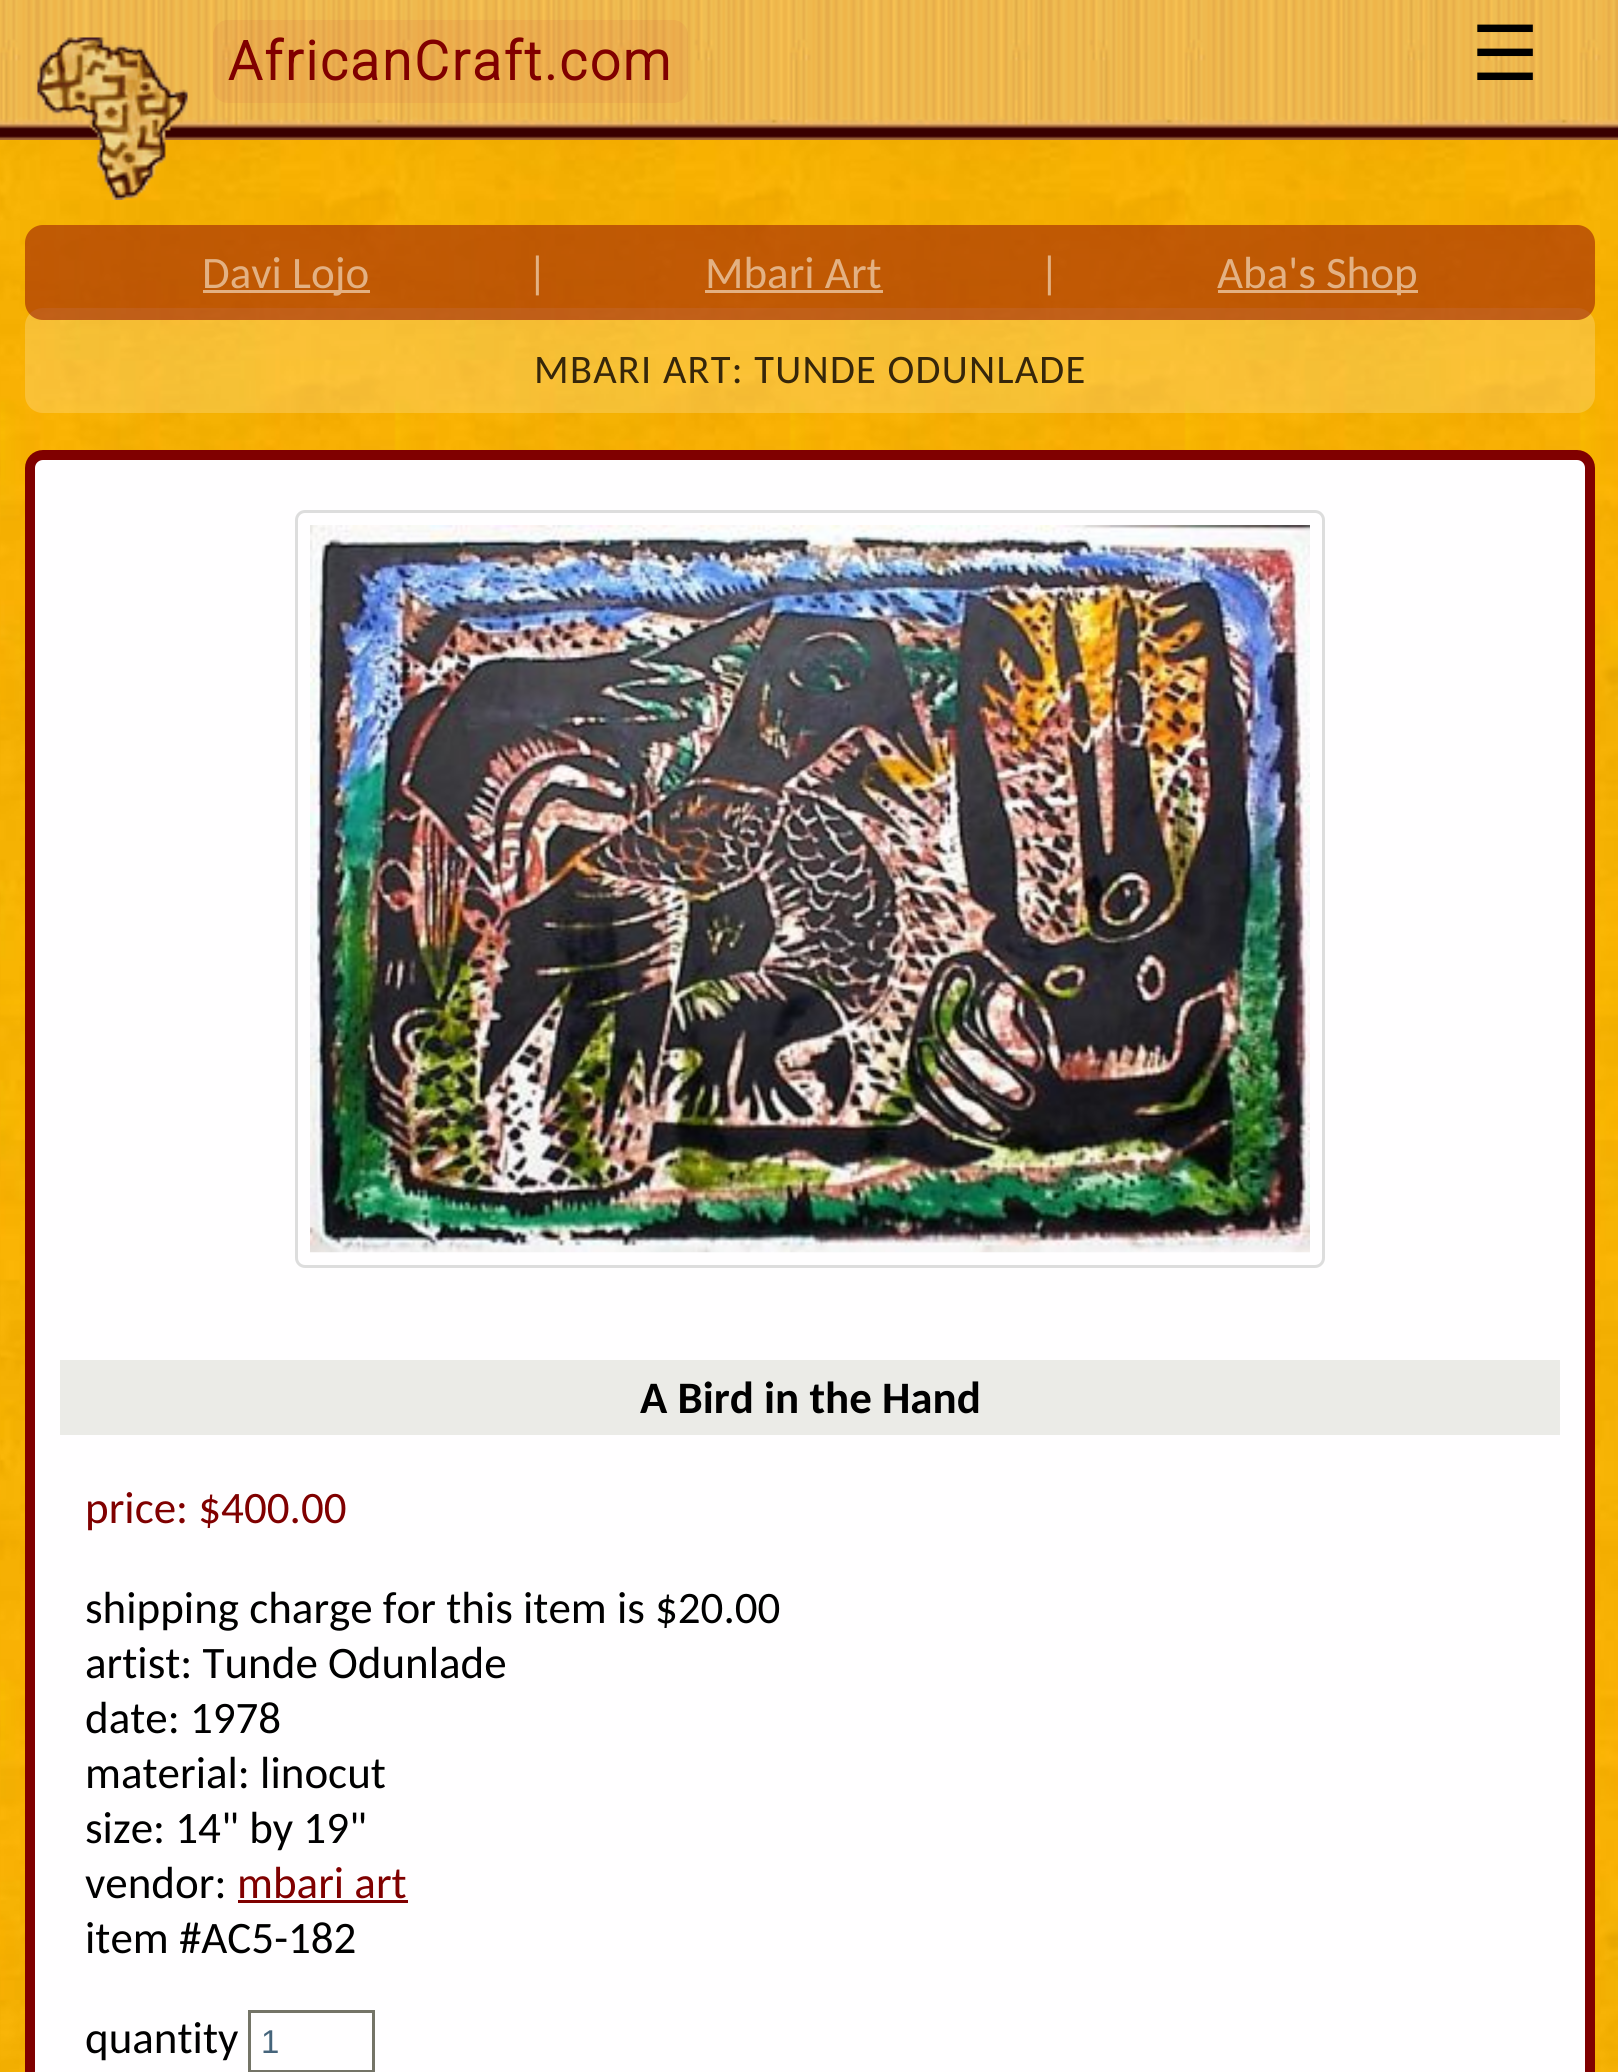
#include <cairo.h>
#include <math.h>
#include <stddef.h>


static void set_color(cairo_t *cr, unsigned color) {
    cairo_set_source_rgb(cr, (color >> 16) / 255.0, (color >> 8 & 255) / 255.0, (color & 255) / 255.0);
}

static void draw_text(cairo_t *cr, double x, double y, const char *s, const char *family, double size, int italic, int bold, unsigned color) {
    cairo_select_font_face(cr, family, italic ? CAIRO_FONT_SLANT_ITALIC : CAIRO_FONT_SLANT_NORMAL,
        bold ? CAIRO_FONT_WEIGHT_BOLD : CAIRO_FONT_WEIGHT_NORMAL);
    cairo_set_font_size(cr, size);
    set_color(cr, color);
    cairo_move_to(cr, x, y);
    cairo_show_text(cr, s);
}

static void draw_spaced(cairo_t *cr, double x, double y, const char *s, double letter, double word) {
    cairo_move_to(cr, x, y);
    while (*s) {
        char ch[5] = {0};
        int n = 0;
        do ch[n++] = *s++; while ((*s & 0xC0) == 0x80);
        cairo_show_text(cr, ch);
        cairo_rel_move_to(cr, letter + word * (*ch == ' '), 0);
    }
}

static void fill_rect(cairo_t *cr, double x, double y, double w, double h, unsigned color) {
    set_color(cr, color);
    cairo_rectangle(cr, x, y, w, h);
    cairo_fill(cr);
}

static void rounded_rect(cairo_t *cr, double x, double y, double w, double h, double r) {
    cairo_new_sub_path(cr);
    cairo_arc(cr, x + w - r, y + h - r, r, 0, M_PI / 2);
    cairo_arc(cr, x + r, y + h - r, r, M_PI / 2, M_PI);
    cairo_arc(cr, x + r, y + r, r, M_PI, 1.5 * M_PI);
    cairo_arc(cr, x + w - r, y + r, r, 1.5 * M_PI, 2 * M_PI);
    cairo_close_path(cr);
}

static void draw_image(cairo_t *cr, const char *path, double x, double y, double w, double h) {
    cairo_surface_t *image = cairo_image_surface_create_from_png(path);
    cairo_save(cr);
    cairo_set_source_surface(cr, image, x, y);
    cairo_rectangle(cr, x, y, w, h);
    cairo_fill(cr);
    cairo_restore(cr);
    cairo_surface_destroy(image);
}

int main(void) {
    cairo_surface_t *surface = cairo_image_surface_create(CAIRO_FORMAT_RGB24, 1618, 2072);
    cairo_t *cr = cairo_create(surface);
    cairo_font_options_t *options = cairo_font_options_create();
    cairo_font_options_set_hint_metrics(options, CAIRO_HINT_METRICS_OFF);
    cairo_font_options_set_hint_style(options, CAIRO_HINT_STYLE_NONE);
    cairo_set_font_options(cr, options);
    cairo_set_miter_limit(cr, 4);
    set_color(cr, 0xFFFFFF);
    cairo_paint(cr);
    draw_image(cr, "assets/img1.png", 0, 0, 1618, 2072);
    draw_image(cr, "assets/img2.png", 37, 37, 151, 163);
    cairo_set_source_rgba(cr, 0.788, 0.298, 0.298, 0.1);
    rounded_rect(cr, 213, 20, 475, 83, 15);
    cairo_fill(cr);
    cairo_select_font_face(cr, "Roboto", CAIRO_FONT_SLANT_NORMAL, CAIRO_FONT_WEIGHT_BOLD);
    cairo_set_font_size(cr, 54);
    set_color(cr, 0x800000);
    draw_spaced(cr, 228, 80, "AfricanCraft.com", 2.5, 0);
    draw_text(cr, 1471, 80, "☰", "DejaVu Sans", 76, 0, 0, 0x000000);
    cairo_set_source_rgba(cr, 1, 1, 1, 0.2);
    rounded_rect(cr, 25, 308, 1570, 105, 18);
    cairo_fill(cr);
    cairo_set_source_rgba(cr, 0.616, 0.129, 0.02, 0.6);
    rounded_rect(cr, 25, 225, 1570, 95, 18);
    cairo_fill(cr);
    cairo_set_source_rgba(cr, 0.98, 0.922, 0.843, 0.6);
    cairo_rectangle(cr, 203, 290, 167, 3);
    cairo_fill(cr);
    draw_text(cr, 202, 288, "Davi Lojo", "Carlito", 45, 0, 0, 0xE3B183);
    draw_text(cr, 527, 288, "|", "Carlito", 45, 0, 0, 0xE3B183);
    draw_text(cr, 705, 288, "Mbari Art", "Carlito", 45, 0, 0, 0xE3B183);
    cairo_set_source_rgba(cr, 0.98, 0.922, 0.843, 0.6);
    cairo_rectangle(cr, 705, 290, 178, 3);
    cairo_fill(cr);
    draw_text(cr, 1039, 288, "|", "Carlito", 45, 0, 0, 0xE3B183);
    cairo_set_source_rgba(cr, 0.98, 0.922, 0.843, 0.6);
    cairo_rectangle(cr, 1218, 290, 200, 3);
    cairo_fill(cr);
    draw_text(cr, 1217, 288, "Aba's Shop", "Carlito", 45, 0, 0, 0xE3B183);
    cairo_set_font_size(cr, 40.5);
    set_color(cr, 0x36260A);
    draw_spaced(cr, 534, 383, "MBARI ART: TUNDE ODUNLADE", 1.25, 0);
    set_color(cr, 0xFFFEFF);
    rounded_rect(cr, 30, 455, 1560, 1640, 13);
    cairo_fill_preserve(cr);
    set_color(cr, 0x800000);
    cairo_set_line_width(cr, 10);
    cairo_stroke(cr);
    rounded_rect(cr, 296.5, 511.5, 1027, 755, 8.5);
    set_color(cr, 0xDDDDDD);
    cairo_set_line_width(cr, 3);
    cairo_stroke(cr);
    draw_image(cr, "assets/img3.png", 310, 525, 1000, 728);
    fill_rect(cr, 60, 1360, 1500, 75, 0xEBEBE7);
    draw_text(cr, 640, 1413, "A Bird in the Hand", "Carlito", 45, 0, 1, 0x000000);
    draw_text(cr, 85, 1523, "price: $400.00", "Carlito", 45, 0, 0, 0x800000);
    draw_text(cr, 85, 1623, "shipping charge for this item is $20.00", "Carlito", 45, 0, 0, 0x000000);
    draw_text(cr, 85, 1678, "artist: Tunde Odunlade", "Carlito", 45, 0, 0, 0x000000);
    draw_text(cr, 85, 1733, "date: 1978", "Carlito", 45, 0, 0, 0x000000);
    draw_text(cr, 85, 1788, "material: linocut", "Carlito", 45, 0, 0, 0x000000);
    draw_text(cr, 85, 1843, "size: 14\" by 19\"", "Carlito", 45, 0, 0, 0x000000);
    draw_text(cr, 85, 1898, "vendor:", "Carlito", 45, 0, 0, 0x000000);
    draw_text(cr, 237, 1898, "mbari art", "Carlito", 45, 0, 0, 0x800000);
    fill_rect(cr, 238, 1900, 170, 3, 0x800000);
    draw_text(cr, 85, 1953, "item #AC5-182", "Carlito", 45, 0, 0, 0x000000);
    draw_text(cr, 85, 2053, "quantity", "Carlito", 45, 0, 0, 0x000000);
    cairo_rectangle(cr, 249.5, 2011.5, 124, 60);
    set_color(cr, 0x747467);
    cairo_stroke(cr);
    draw_text(cr, 261, 2053, "1", "Liberation Sans", 33, 0, 0, 0x45647B);
    cairo_surface_write_to_png(surface, "output.png");
    cairo_font_options_destroy(options);
    cairo_destroy(cr);
    cairo_surface_destroy(surface);
    return 0;
}
